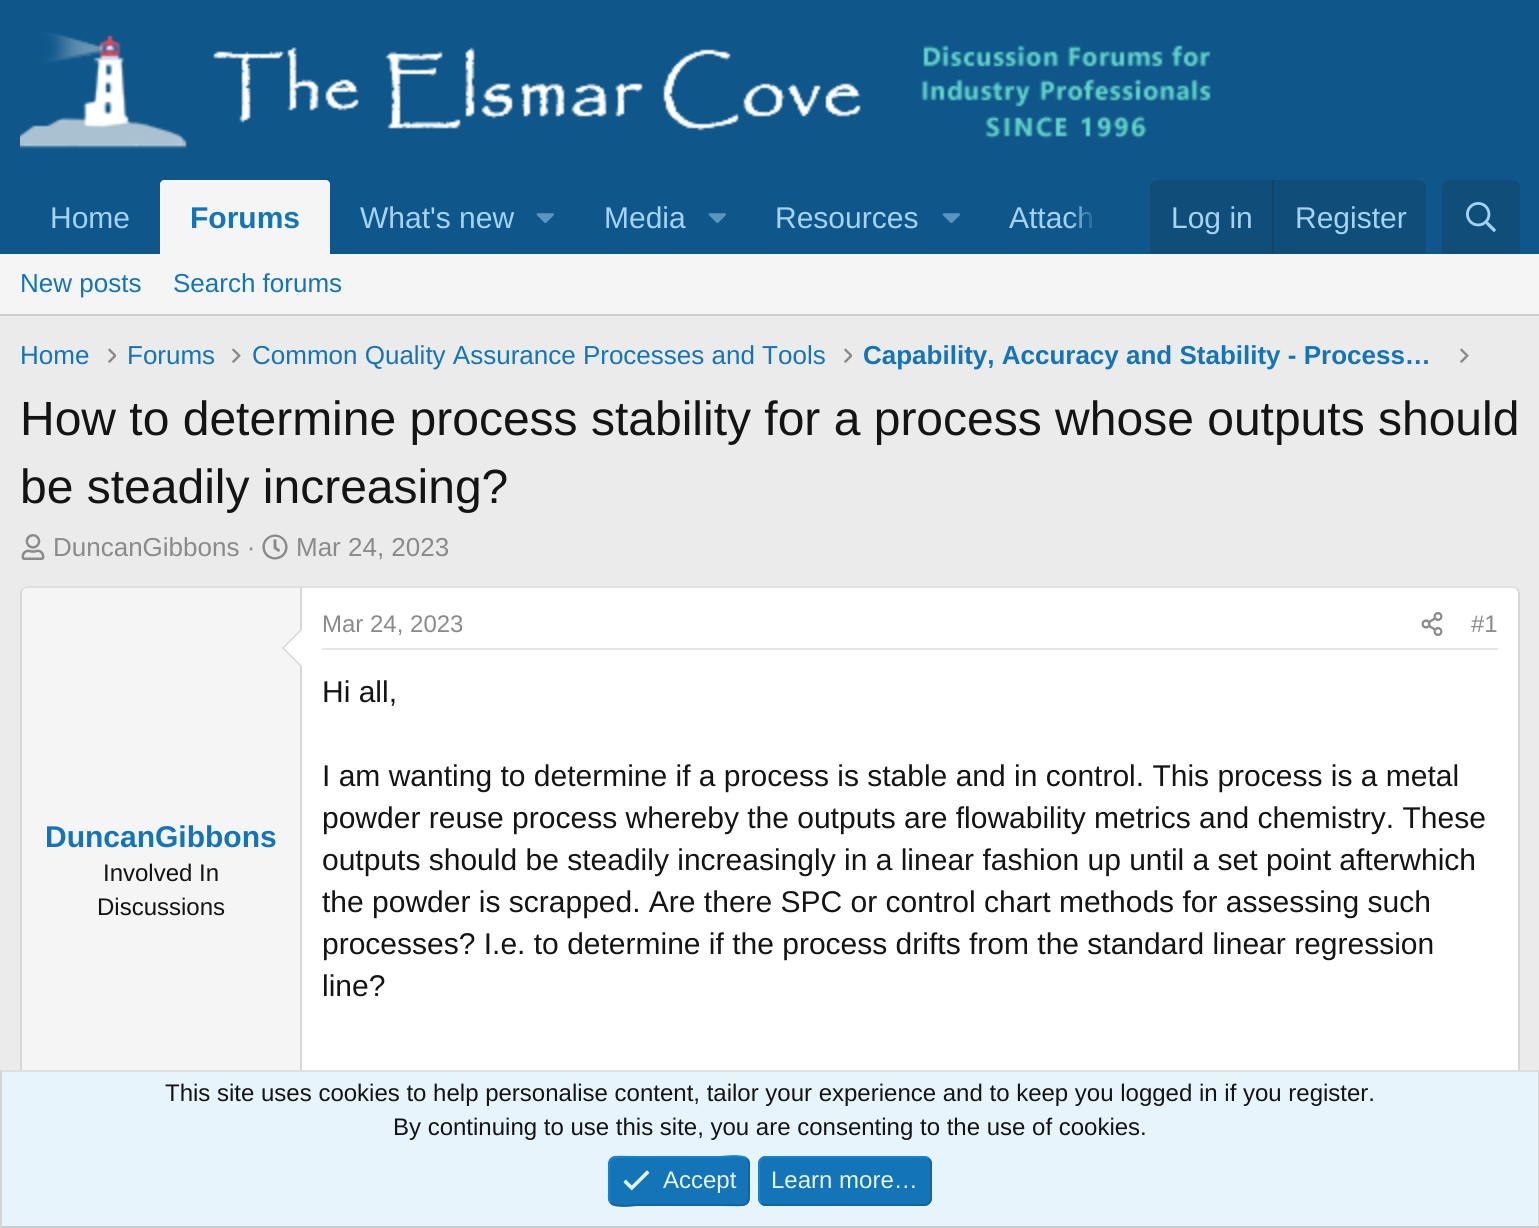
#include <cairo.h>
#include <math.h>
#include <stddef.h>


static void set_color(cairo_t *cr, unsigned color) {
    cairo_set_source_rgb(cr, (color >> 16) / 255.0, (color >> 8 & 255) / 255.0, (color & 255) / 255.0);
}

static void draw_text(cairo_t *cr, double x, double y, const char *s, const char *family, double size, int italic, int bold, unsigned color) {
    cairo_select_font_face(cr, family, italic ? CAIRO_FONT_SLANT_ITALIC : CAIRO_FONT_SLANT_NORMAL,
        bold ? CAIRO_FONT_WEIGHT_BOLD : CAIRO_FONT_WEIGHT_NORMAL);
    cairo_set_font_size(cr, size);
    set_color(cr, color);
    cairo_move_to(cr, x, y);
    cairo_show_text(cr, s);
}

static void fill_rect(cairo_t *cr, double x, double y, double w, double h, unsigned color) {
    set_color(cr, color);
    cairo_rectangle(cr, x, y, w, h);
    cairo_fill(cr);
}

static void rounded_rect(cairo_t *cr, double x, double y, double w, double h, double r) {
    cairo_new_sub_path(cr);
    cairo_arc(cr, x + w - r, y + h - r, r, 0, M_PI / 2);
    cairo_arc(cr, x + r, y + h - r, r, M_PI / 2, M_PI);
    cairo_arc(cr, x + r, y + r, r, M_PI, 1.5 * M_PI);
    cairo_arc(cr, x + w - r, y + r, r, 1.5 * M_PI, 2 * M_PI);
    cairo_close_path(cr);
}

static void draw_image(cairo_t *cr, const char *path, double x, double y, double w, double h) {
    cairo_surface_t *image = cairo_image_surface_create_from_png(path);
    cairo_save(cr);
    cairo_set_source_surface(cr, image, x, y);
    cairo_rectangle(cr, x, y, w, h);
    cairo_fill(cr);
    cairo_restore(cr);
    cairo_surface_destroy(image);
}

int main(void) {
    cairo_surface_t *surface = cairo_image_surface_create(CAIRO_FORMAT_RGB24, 1539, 1228);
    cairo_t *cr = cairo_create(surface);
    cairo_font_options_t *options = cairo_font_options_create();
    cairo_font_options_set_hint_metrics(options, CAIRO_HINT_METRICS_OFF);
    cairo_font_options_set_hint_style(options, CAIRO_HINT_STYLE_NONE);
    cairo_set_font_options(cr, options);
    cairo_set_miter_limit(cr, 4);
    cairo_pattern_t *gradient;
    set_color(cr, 0xEBEBEB);
    cairo_paint(cr);
    fill_rect(cr, 0, 0, 1539, 254, 0x0F578A);
    draw_image(cr, "assets/img1.png", 20, 32, 1191, 117);
    draw_text(cr, 50, 228, "Home", "Liberation Sans", 30, 0, 0, 0xA3D4F5);
    set_color(cr, 0xF5F5F5);
    cairo_new_path(cr);
    cairo_move_to(cr, 164, 180);
    cairo_line_to(cr, 326, 180);
    cairo_curve_to(cr, 328, 180, 330, 182, 330, 184);
    cairo_line_to(cr, 330, 254);
    cairo_line_to(cr, 160, 254);
    cairo_line_to(cr, 160, 184);
    cairo_curve_to(cr, 160, 182, 162, 180, 164, 180);
    cairo_close_path(cr);
    cairo_fill(cr);
    draw_text(cr, 190, 228, "Forums", "Liberation Sans", 30, 0, 1, 0x1474B8);
    draw_text(cr, 360, 228, "What's new", "Liberation Sans", 30, 0, 0, 0xA3D4F5);
    draw_image(cr, "assets/img2.png", 536, 213, 18, 11);
    draw_text(cr, 604, 228, "Media", "Liberation Sans", 30, 0, 0, 0xA3D4F5);
    draw_image(cr, "assets/img2.png", 708, 213, 18, 11);
    draw_text(cr, 775, 228, "Resources", "Liberation Sans", 30, 0, 0, 0xA3D4F5);
    draw_image(cr, "assets/img2.png", 942, 213, 18, 11);
    draw_text(cr, 1009, 228, "Attach", "Liberation Sans", 30, 0, 0, 0xA3D4F5);
    gradient = cairo_pattern_create_linear(1070, 217, 1150, 217);
    cairo_pattern_add_color_stop_rgba(gradient, 0, 0.059, 0.341, 0.541, 0);
    cairo_pattern_add_color_stop_rgba(gradient, 0.33, 0.059, 0.341, 0.541, 1);
    cairo_set_source(cr, gradient);
    cairo_pattern_destroy(gradient);
    cairo_rectangle(cr, 1071, 206, 21, 22);
    cairo_fill(cr);
    set_color(cr, 0x104D78);
    cairo_new_path(cr);
    cairo_move_to(cr, 1158, 180);
    cairo_line_to(cr, 1418, 180);
    cairo_curve_to(cr, 1422.5, 180, 1426, 183.5, 1426, 188);
    cairo_line_to(cr, 1426, 254);
    cairo_line_to(cr, 1150, 254);
    cairo_line_to(cr, 1150, 188);
    cairo_curve_to(cr, 1150, 183.5, 1153.5, 180, 1158, 180);
    cairo_close_path(cr);
    cairo_fill(cr);
    draw_text(cr, 1171, 228, "Log in", "Liberation Sans", 30, 0, 0, 0xA3D4F5);
    fill_rect(cr, 1272, 180, 2, 74, 0x114469);
    draw_text(cr, 1295, 228, "Register", "Liberation Sans", 30, 0, 0, 0xA3D4F5);
    set_color(cr, 0x104D78);
    cairo_new_path(cr);
    cairo_move_to(cr, 1450, 180);
    cairo_line_to(cr, 1512, 180);
    cairo_curve_to(cr, 1516.5, 180, 1520, 183.5, 1520, 188);
    cairo_line_to(cr, 1520, 254);
    cairo_line_to(cr, 1442, 254);
    cairo_line_to(cr, 1442, 188);
    cairo_curve_to(cr, 1442, 183.5, 1445.5, 180, 1450, 180);
    cairo_close_path(cr);
    cairo_fill(cr);
    draw_image(cr, "assets/img3.png", 1466, 202, 30, 30);
    fill_rect(cr, 0, 254, 1539, 60, 0xF5F5F5);
    fill_rect(cr, 0, 314, 1539, 2, 0xCCCCCC);
    draw_text(cr, 20, 292, "New posts", "Liberation Sans", 26, 0, 0, 0x1474B8);
    draw_text(cr, 173, 292, "Search forums", "Liberation Sans", 26, 0, 0, 0x1474B8);
    draw_text(cr, 20, 364, "Home", "Liberation Sans", 26, 0, 0, 0x1474B8);
    draw_image(cr, "assets/img4.png", 108, 348, 8, 15);
    draw_text(cr, 127, 364, "Forums", "Liberation Sans", 26, 0, 0, 0x1474B8);
    draw_image(cr, "assets/img5.png", 232, 348, 9, 15);
    draw_text(cr, 252, 364, "Common Quality Assurance Processes and Tools", "Liberation Sans", 26, 0, 0, 0x1474B8);
    draw_image(cr, "assets/img4.png", 844, 348, 8, 15);
    draw_text(cr, 863, 364, "Capability, Accuracy and Stability - Process…", "Liberation Sans", 26, 0, 1, 0x1474B8);
    draw_image(cr, "assets/img5.png", 1460, 348, 9, 15);
    draw_text(cr, 20, 435, "How to determine process stability for a process whose outputs should", "Liberation Sans", 48, 0, 0, 0x141414);
    draw_text(cr, 20, 503, "be steadily increasing?", "Liberation Sans", 48, 0, 0, 0x141414);
    draw_image(cr, "assets/img6.png", 21, 534, 24, 26);
    draw_text(cr, 53, 556, "DuncanGibbons ·", "Liberation Sans", 26, 0, 0, 0x8A8A8A);
    draw_image(cr, "assets/img7.png", 262, 534, 26, 26);
    draw_text(cr, 296, 556, "Mar 24, 2023", "Liberation Sans", 26, 0, 0, 0x8A8A8A);
    set_color(cr, 0xFFFFFF);
    rounded_rect(cr, 20, 586, 1500, 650, 8);
    cairo_fill(cr);
    cairo_new_path(cr);
    cairo_move_to(cr, 23, 589);
    cairo_curve_to(cr, 24.5, 587.5, 26, 587, 28, 587);
    cairo_line_to(cr, 1512, 587);
    cairo_curve_to(cr, 1514, 587, 1515.5, 587.5, 1517, 589);
    set_color(cr, 0xE0E0E0);
    cairo_stroke(cr);
    cairo_new_path(cr);
    cairo_move_to(cr, 1517, 589);
    cairo_curve_to(cr, 1518.5, 590.5, 1519, 592, 1519, 594);
    cairo_line_to(cr, 1519, 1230);
    cairo_curve_to(cr, 1519, 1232, 1518.5, 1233.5, 1517, 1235);
    set_color(cr, 0xD6D6D6);
    cairo_stroke(cr);
    cairo_new_path(cr);
    cairo_move_to(cr, 23, 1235);
    cairo_curve_to(cr, 21.5, 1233.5, 21, 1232, 21, 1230);
    cairo_line_to(cr, 21, 594);
    cairo_curve_to(cr, 21, 592, 21.5, 590.5, 23, 589);
    cairo_stroke(cr);
    set_color(cr, 0xF5F5F5);
    cairo_new_path(cr);
    cairo_move_to(cr, 28, 588);
    cairo_line_to(cr, 302, 588);
    cairo_line_to(cr, 302, 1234);
    cairo_line_to(cr, 28, 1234);
    cairo_curve_to(cr, 24.5, 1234, 22, 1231.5, 22, 1228);
    cairo_line_to(cr, 22, 594);
    cairo_curve_to(cr, 22, 590.5, 24.5, 588, 28, 588);
    cairo_close_path(cr);
    cairo_fill(cr);
    fill_rect(cr, 300, 588, 2, 482, 0xD6D6D6);
    cairo_new_path(cr);
    cairo_move_to(cr, 302, 628);
    cairo_line_to(cr, 302, 668);
    cairo_line_to(cr, 282, 648);
    cairo_close_path(cr);
    cairo_fill(cr);
    set_color(cr, 0xFFFFFF);
    cairo_new_path(cr);
    cairo_move_to(cr, 302, 630);
    cairo_line_to(cr, 302, 666);
    cairo_line_to(cr, 284, 648);
    cairo_close_path(cr);
    cairo_fill(cr);
    draw_text(cr, 45, 847, "DuncanGibbons", "Liberation Sans", 30, 0, 1, 0x1474B8);
    draw_text(cr, 103, 881, "Involved In", "Liberation Sans", 24, 0, 0, 0x141414);
    draw_text(cr, 97, 915, "Discussions", "Liberation Sans", 24, 0, 0, 0x141414);
    fill_rect(cr, 322, 648, 1176, 2, 0xE6E6E6);
    draw_text(cr, 322, 632, "Mar 24, 2023", "Liberation Sans", 24, 0, 0, 0x8A8A8A);
    draw_image(cr, "assets/img8.png", 1421, 612, 22, 24);
    draw_text(cr, 1471, 632, "#1", "Liberation Sans", 24, 0, 0, 0x8A8A8A);
    draw_text(cr, 322, 702, "Hi all,", "Liberation Sans", 30, 0, 0, 0x141414);
    draw_text(cr, 322, 786, "I am wanting to determine if a process is stable and in control. This process is a metal", "Liberation Sans", 30, 0, 0, 0x141414);
    draw_text(cr, 322, 828, "powder reuse process whereby the outputs are flowability metrics and chemistry. These", "Liberation Sans", 30, 0, 0, 0x141414);
    draw_text(cr, 322, 870, "outputs should be steadily increasingly in a linear fashion up until a set point afterwhich", "Liberation Sans", 30, 0, 0, 0x141414);
    draw_text(cr, 322, 912, "the powder is scrapped. Are there SPC or control chart methods for assessing such", "Liberation Sans", 30, 0, 0, 0x141414);
    draw_text(cr, 322, 954, "processes? I.e. to determine if the process drifts from the standard linear regression", "Liberation Sans", 30, 0, 0, 0x141414);
    draw_text(cr, 322, 996, "line?", "Liberation Sans", 30, 0, 0, 0x141414);
    fill_rect(cr, 2, 1072, 1536, 154, 0xE8F4FC);
    fill_rect(cr, 0, 1070, 1539, 2, 0xE0E0E0);
    fill_rect(cr, 1538, 1070, 1, 158, 0xD6D6D6);
    fill_rect(cr, 0, 1226, 1539, 2, 0xCCCCCC);
    fill_rect(cr, 0, 1070, 2, 158, 0xD6D6D6);
    draw_text(cr, 165, 1101, "This site uses cookies to help personalise content, tailor your experience and to keep you logged in if you register.", "Liberation Sans", 24, 0, 0, 0x141414);
    draw_text(cr, 393, 1135, "By continuing to use this site, you are consenting to the use of cookies.", "Liberation Sans", 24, 0, 0, 0x141414);
    set_color(cr, 0x1474B8);
    rounded_rect(cr, 608, 1156, 142, 50, 8);
    cairo_fill(cr);
    cairo_new_path(cr);
    cairo_move_to(cr, 747, 1159);
    cairo_curve_to(cr, 750, 1162, 749, 1166, 749, 1169.5);
    cairo_line_to(cr, 749, 1181);
    cairo_curve_to(cr, 749, 1209, 751.5, 1205, 721, 1205);
    cairo_line_to(cr, 637, 1205);
    cairo_curve_to(cr, 635, 1205, 616, 1208, 611, 1203);
    set_color(cr, 0x1265A1);
    cairo_stroke(cr);
    cairo_new_path(cr);
    cairo_move_to(cr, 611, 1203);
    cairo_curve_to(cr, 608, 1200, 609, 1196, 609, 1192.5);
    cairo_line_to(cr, 609, 1181);
    cairo_curve_to(cr, 609, 1153, 606.5, 1157, 637, 1157);
    cairo_line_to(cr, 721, 1157);
    cairo_curve_to(cr, 723, 1157, 742, 1154, 747, 1159);
    set_color(cr, 0x1782CF);
    cairo_stroke(cr);
    draw_image(cr, "assets/img9.png", 623, 1170, 27, 21);
    draw_text(cr, 663, 1188, "Accept", "Liberation Sans", 24, 0, 0, 0xE8F4FC);
    set_color(cr, 0x1474B8);
    rounded_rect(cr, 758, 1156, 174, 50, 8);
    cairo_fill(cr);
    cairo_new_path(cr);
    cairo_move_to(cr, 929, 1159);
    cairo_curve_to(cr, 930.5, 1160.5, 931, 1162, 931, 1164);
    cairo_line_to(cr, 931, 1198);
    cairo_curve_to(cr, 931, 1200, 930.5, 1201.5, 929, 1203);
    cairo_curve_to(cr, 927.5, 1204.5, 926, 1205, 924, 1205);
    cairo_line_to(cr, 766, 1205);
    cairo_curve_to(cr, 764, 1205, 762.5, 1204.5, 761, 1203);
    set_color(cr, 0x1265A1);
    cairo_stroke(cr);
    cairo_new_path(cr);
    cairo_move_to(cr, 761, 1203);
    cairo_curve_to(cr, 759.5, 1201.5, 759, 1200, 759, 1198);
    cairo_line_to(cr, 759, 1164);
    cairo_curve_to(cr, 759, 1162, 759.5, 1160.5, 761, 1159);
    cairo_curve_to(cr, 762.5, 1157.5, 764, 1157, 766, 1157);
    cairo_line_to(cr, 924, 1157);
    cairo_curve_to(cr, 926, 1157, 927.5, 1157.5, 929, 1159);
    set_color(cr, 0x1782CF);
    cairo_stroke(cr);
    draw_text(cr, 771, 1188, "Learn more…", "Liberation Sans", 24, 0, 0, 0xE8F4FC);
    cairo_surface_write_to_png(surface, "output.png");
    cairo_font_options_destroy(options);
    cairo_destroy(cr);
    cairo_surface_destroy(surface);
    return 0;
}
